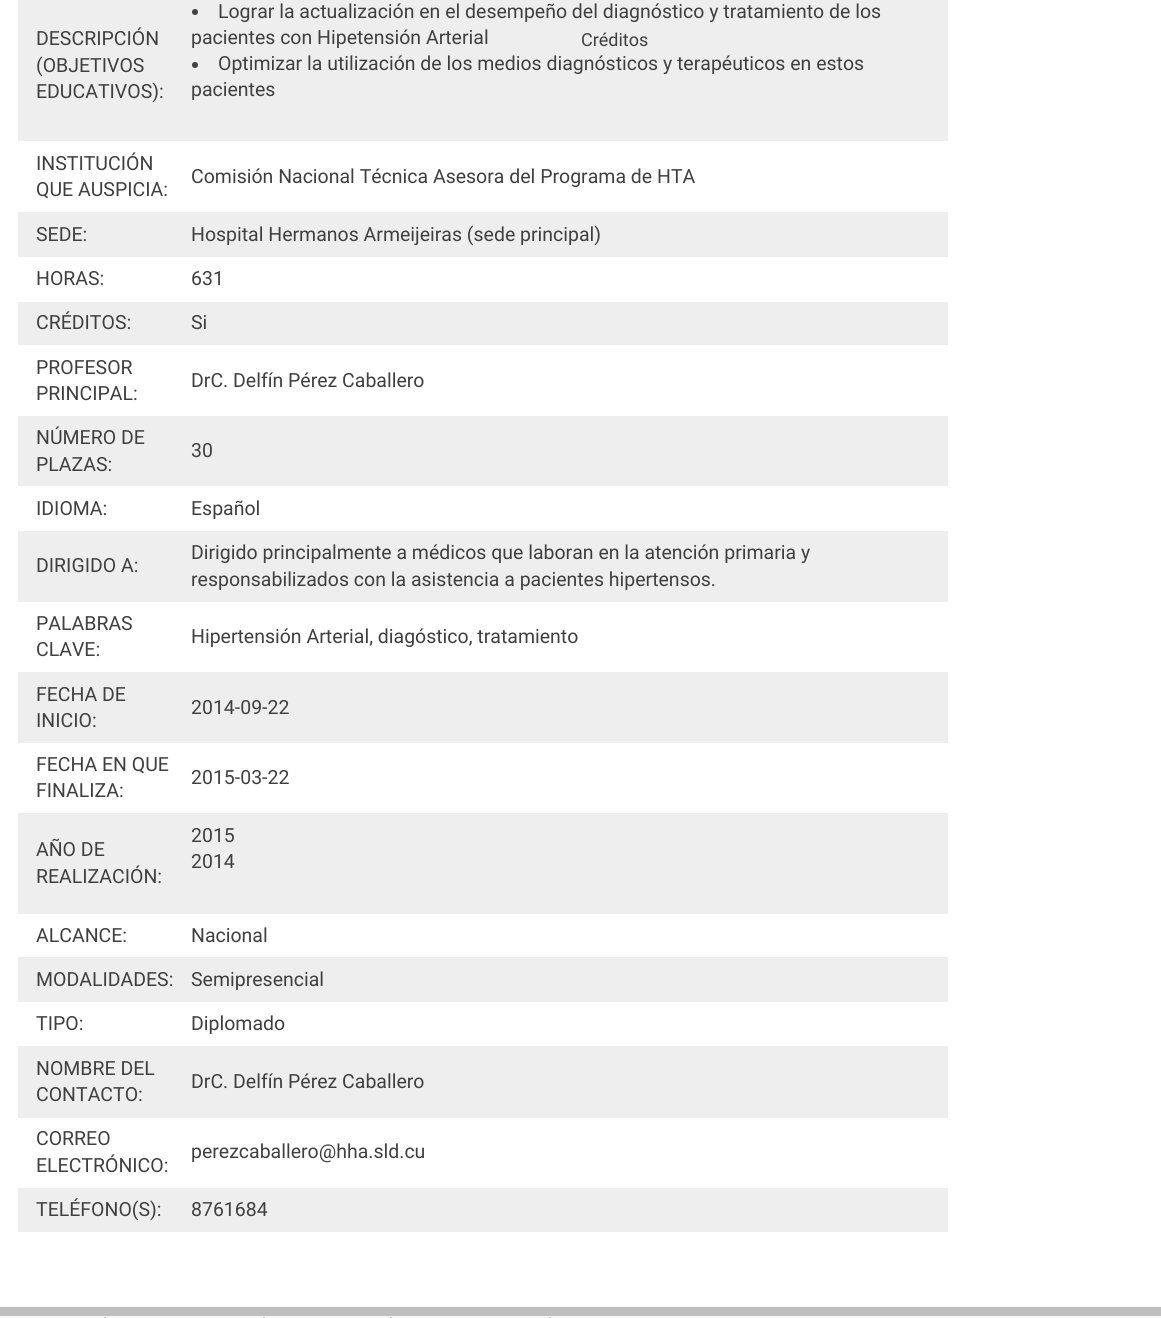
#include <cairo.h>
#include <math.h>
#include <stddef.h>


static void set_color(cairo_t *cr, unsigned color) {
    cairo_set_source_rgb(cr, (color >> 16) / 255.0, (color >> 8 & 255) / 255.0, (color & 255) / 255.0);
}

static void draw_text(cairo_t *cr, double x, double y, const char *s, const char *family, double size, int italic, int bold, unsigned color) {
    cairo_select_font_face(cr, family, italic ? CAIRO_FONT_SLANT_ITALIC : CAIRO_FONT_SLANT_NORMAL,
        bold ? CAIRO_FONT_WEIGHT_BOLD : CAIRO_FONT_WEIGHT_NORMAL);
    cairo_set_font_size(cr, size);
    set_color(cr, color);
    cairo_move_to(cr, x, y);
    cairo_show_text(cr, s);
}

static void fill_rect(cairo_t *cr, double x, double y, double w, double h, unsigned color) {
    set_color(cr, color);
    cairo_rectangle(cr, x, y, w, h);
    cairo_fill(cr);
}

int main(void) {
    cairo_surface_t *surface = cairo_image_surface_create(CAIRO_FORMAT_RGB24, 1161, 1318);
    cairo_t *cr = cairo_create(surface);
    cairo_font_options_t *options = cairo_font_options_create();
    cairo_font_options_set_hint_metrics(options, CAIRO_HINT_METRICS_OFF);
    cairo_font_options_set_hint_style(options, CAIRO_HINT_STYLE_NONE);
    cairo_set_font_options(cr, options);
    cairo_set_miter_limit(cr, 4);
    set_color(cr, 0xFFFFFF);
    cairo_paint(cr);
    fill_rect(cr, 18, 0, 930, 141, 0xEEEEEE);
    draw_text(cr, 36, 45, "DESCRIPCIÓN", "Roboto", 19.5, 0, 0, 0x3F3F3F);
    draw_text(cr, 36, 72, "(OBJETIVOS", "Roboto", 19.5, 0, 0, 0x3F3F3F);
    draw_text(cr, 36, 98, "EDUCATIVOS):", "Roboto", 19.5, 0, 0, 0x3F3F3F);
    cairo_new_path(cr);
    cairo_arc(cr, 195, 12, 3, 0, 2 * M_PI);
    cairo_fill(cr);
    draw_text(cr, 218, 18, "Lograr la actualización en el desempeño del diagnóstico y tratamiento de los", "Roboto", 19.5, 0, 0, 0x3F3F3F);
    draw_text(cr, 191, 44, "pacientes con Hipetensión Arterial", "Roboto", 19.5, 0, 0, 0x3F3F3F);
    cairo_new_path(cr);
    cairo_arc(cr, 195, 65, 3, 0, 2 * M_PI);
    cairo_fill(cr);
    draw_text(cr, 218, 70, "Optimizar la utilización de los medios diagnósticos y terapéuticos en estos", "Roboto", 19.5, 0, 0, 0x3F3F3F);
    draw_text(cr, 191, 96, "pacientes", "Roboto", 19.5, 0, 0, 0x3F3F3F);
    draw_text(cr, 36, 170, "INSTITUCIÓN", "Roboto", 19.5, 0, 0, 0x3F3F3F);
    draw_text(cr, 36, 196, "QUE AUSPICIA:", "Roboto", 19.5, 0, 0, 0x3F3F3F);
    draw_text(cr, 191, 183, "Comisión Nacional Técnica Asesora del Programa de HTA", "Roboto", 19.5, 0, 0, 0x3F3F3F);
    fill_rect(cr, 18, 212, 930, 45, 0xEEEEEE);
    draw_text(cr, 36, 241, "SEDE:", "Roboto", 19.5, 0, 0, 0x3F3F3F);
    draw_text(cr, 191, 241, "Hospital Hermanos Armeijeiras (sede principal)", "Roboto", 19.5, 0, 0, 0x3F3F3F);
    draw_text(cr, 36, 285, "HORAS:", "Roboto", 19.5, 0, 0, 0x3F3F3F);
    draw_text(cr, 191, 285, "631", "Roboto", 19.5, 0, 0, 0x3F3F3F);
    fill_rect(cr, 18, 302, 930, 43, 0xEEEEEE);
    draw_text(cr, 36, 329, "CRÉDITOS:", "Roboto", 19.5, 0, 0, 0x3F3F3F);
    draw_text(cr, 191, 329, "Si", "Roboto", 19.5, 0, 0, 0x3F3F3F);
    draw_text(cr, 36, 374, "PROFESOR", "Roboto", 19.5, 0, 0, 0x3F3F3F);
    draw_text(cr, 36, 400, "PRINCIPAL:", "Roboto", 19.5, 0, 0, 0x3F3F3F);
    draw_text(cr, 191, 387, "DrC. Delfín Pérez Caballero", "Roboto", 19.5, 0, 0, 0x3F3F3F);
    fill_rect(cr, 18, 416, 930, 70, 0xEEEEEE);
    draw_text(cr, 36, 444, "NÚMERO DE", "Roboto", 19.5, 0, 0, 0x3F3F3F);
    draw_text(cr, 36, 471, "PLAZAS:", "Roboto", 19.5, 0, 0, 0x3F3F3F);
    draw_text(cr, 191, 457, "30", "Roboto", 19.5, 0, 0, 0x3F3F3F);
    draw_text(cr, 36, 515, "IDIOMA:", "Roboto", 19.5, 0, 0, 0x3F3F3F);
    draw_text(cr, 191, 515, "Español", "Roboto", 19.5, 0, 0, 0x3F3F3F);
    fill_rect(cr, 18, 531, 930, 71, 0xEEEEEE);
    draw_text(cr, 36, 572, "DIRIGIDO A:", "Roboto", 19.5, 0, 0, 0x3F3F3F);
    draw_text(cr, 191, 559, "Dirigido principalmente a médicos que laboran en la atención primaria y", "Roboto", 19.5, 0, 0, 0x3F3F3F);
    draw_text(cr, 191, 586, "responsabilizados con la asistencia a pacientes hipertensos.", "Roboto", 19.5, 0, 0, 0x3F3F3F);
    draw_text(cr, 36, 630, "PALABRAS", "Roboto", 19.5, 0, 0, 0x3F3F3F);
    draw_text(cr, 36, 656, "CLAVE:", "Roboto", 19.5, 0, 0, 0x3F3F3F);
    draw_text(cr, 191, 643, "Hipertensión Arterial, diagóstico, tratamiento", "Roboto", 19.5, 0, 0, 0x3F3F3F);
    fill_rect(cr, 18, 672, 930, 71, 0xEEEEEE);
    draw_text(cr, 36, 701, "FECHA DE", "Roboto", 19.5, 0, 0, 0x3F3F3F);
    draw_text(cr, 36, 727, "INICIO:", "Roboto", 19.5, 0, 0, 0x3F3F3F);
    draw_text(cr, 191, 714, "2014-09-22", "Roboto", 19.5, 0, 0, 0x3F3F3F);
    draw_text(cr, 36, 771, "FECHA EN QUE", "Roboto", 19.5, 0, 0, 0x3F3F3F);
    draw_text(cr, 36, 797, "FINALIZA:", "Roboto", 19.5, 0, 0, 0x3F3F3F);
    draw_text(cr, 191, 784, "2015-03-22", "Roboto", 19.5, 0, 0, 0x3F3F3F);
    fill_rect(cr, 18, 813, 930, 101, 0xEEEEEE);
    draw_text(cr, 36, 856, "AÑO DE", "Roboto", 19.5, 0, 0, 0x3F3F3F);
    draw_text(cr, 36, 883, "REALIZACIÓN:", "Roboto", 19.5, 0, 0, 0x3F3F3F);
    draw_text(cr, 191, 842, "2015", "Roboto", 19.5, 0, 0, 0x3F3F3F);
    draw_text(cr, 191, 868, "2014", "Roboto", 19.5, 0, 0, 0x3F3F3F);
    draw_text(cr, 36, 942, "ALCANCE:", "Roboto", 19.5, 0, 0, 0x3F3F3F);
    draw_text(cr, 191, 942, "Nacional", "Roboto", 19.5, 0, 0, 0x3F3F3F);
    fill_rect(cr, 18, 957, 930, 45, 0xEEEEEE);
    draw_text(cr, 36, 986, "MODALIDADES:", "Roboto", 19.5, 0, 0, 0x3F3F3F);
    draw_text(cr, 191, 986, "Semipresencial", "Roboto", 19.5, 0, 0, 0x3F3F3F);
    draw_text(cr, 36, 1030, "TIPO:", "Roboto", 19.5, 0, 0, 0x3F3F3F);
    draw_text(cr, 191, 1030, "Diplomado", "Roboto", 19.5, 0, 0, 0x3F3F3F);
    fill_rect(cr, 18, 1046, 930, 72, 0xEEEEEE);
    draw_text(cr, 36, 1075, "NOMBRE DEL", "Roboto", 19.5, 0, 0, 0x3F3F3F);
    draw_text(cr, 36, 1101, "CONTACTO:", "Roboto", 19.5, 0, 0, 0x3F3F3F);
    draw_text(cr, 191, 1088, "DrC. Delfín Pérez Caballero", "Roboto", 19.5, 0, 0, 0x3F3F3F);
    draw_text(cr, 36, 1145, "CORREO", "Roboto", 19.5, 0, 0, 0x3F3F3F);
    draw_text(cr, 36, 1172, "ELECTRÓNICO:", "Roboto", 19.5, 0, 0, 0x3F3F3F);
    draw_text(cr, 191, 1158, "perezcaballero@hha.sld.cu", "Roboto", 19.5, 0, 0, 0x3F3F3F);
    fill_rect(cr, 18, 1188, 930, 44, 0xEEEEEE);
    draw_text(cr, 36, 1216, "TELÉFONO(S):", "Roboto", 19.5, 0, 0, 0x3F3F3F);
    draw_text(cr, 191, 1216, "8761684", "Roboto", 19.5, 0, 0, 0x3F3F3F);
    draw_text(cr, 581, 46, "Créditos", "Roboto", 18, 0, 0, 0x3F3F3F);
    fill_rect(cr, 0, 1316, 1161, 2, 0xF7F7F7);
    fill_rect(cr, 0, 1307, 1161, 9, 0xBFBFBF);
    fill_rect(cr, 104, 1317, 2, 1, 0xBFBFBF);
    fill_rect(cr, 263, 1317, 2, 1, 0xBFBFBF);
    fill_rect(cr, 390, 1317, 2, 1, 0xBFBFBF);
    fill_rect(cr, 549, 1317, 2, 1, 0xBFBFBF);
    cairo_surface_write_to_png(surface, "output.png");
    cairo_font_options_destroy(options);
    cairo_destroy(cr);
    cairo_surface_destroy(surface);
    return 0;
}
